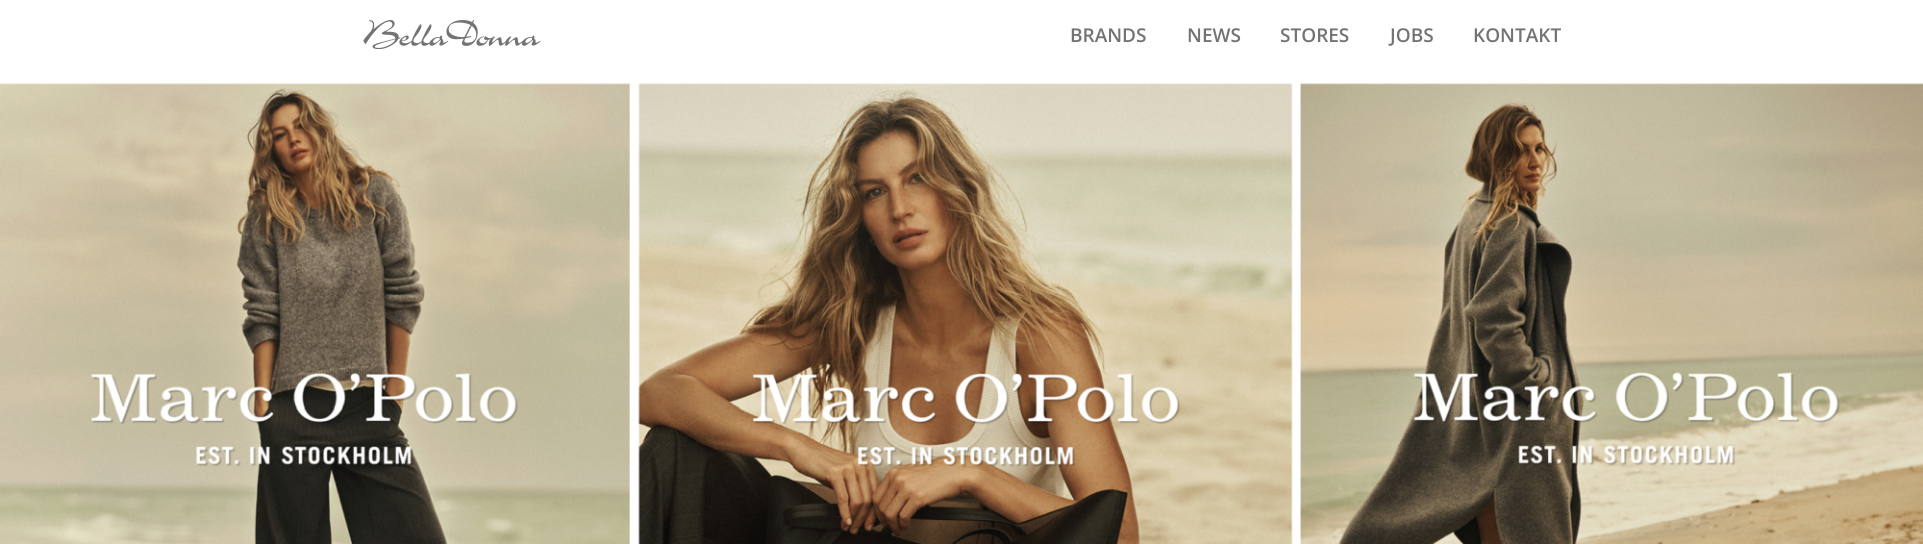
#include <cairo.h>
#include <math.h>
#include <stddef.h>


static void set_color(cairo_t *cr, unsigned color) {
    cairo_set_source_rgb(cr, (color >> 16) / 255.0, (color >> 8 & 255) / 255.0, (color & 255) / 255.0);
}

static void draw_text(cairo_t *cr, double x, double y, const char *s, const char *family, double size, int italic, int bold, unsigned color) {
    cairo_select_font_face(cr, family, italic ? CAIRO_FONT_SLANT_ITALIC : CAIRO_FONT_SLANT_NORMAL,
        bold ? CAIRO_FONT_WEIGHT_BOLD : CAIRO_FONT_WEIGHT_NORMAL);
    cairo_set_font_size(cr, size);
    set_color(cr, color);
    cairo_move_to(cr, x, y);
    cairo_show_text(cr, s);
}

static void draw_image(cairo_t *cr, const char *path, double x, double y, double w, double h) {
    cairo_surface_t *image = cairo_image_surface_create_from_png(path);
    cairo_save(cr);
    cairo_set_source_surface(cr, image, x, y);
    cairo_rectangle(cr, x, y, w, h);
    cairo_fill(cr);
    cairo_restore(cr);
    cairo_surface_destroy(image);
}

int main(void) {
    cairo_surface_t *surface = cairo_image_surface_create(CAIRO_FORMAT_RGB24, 1923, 544);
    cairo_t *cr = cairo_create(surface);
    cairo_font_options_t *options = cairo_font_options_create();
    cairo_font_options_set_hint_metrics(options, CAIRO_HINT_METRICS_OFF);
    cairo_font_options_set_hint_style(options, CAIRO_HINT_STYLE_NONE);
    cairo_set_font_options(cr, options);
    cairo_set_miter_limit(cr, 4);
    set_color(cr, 0xFFFFFF);
    cairo_paint(cr);
    draw_image(cr, "assets/img1.png", 363, 20, 178, 29);
    draw_text(cr, 1070, 42, "BRANDS", "Open Sans SemiBold", 19, 0, 0, 0x737373);
    draw_text(cr, 1187, 42, "NEWS", "Open Sans SemiBold", 19, 0, 0, 0x737373);
    draw_text(cr, 1280, 42, "STORES", "Open Sans SemiBold", 19, 0, 0, 0x737373);
    draw_text(cr, 1390, 42, "JOBS", "Open Sans SemiBold", 19, 0, 0, 0x737373);
    draw_text(cr, 1473, 42, "KONTAKT", "Open Sans SemiBold", 19, 0, 0, 0x737373);
    draw_image(cr, "assets/img2.png", 0, 83, 1923, 461);
    cairo_surface_write_to_png(surface, "output.png");
    cairo_font_options_destroy(options);
    cairo_destroy(cr);
    cairo_surface_destroy(surface);
    return 0;
}
